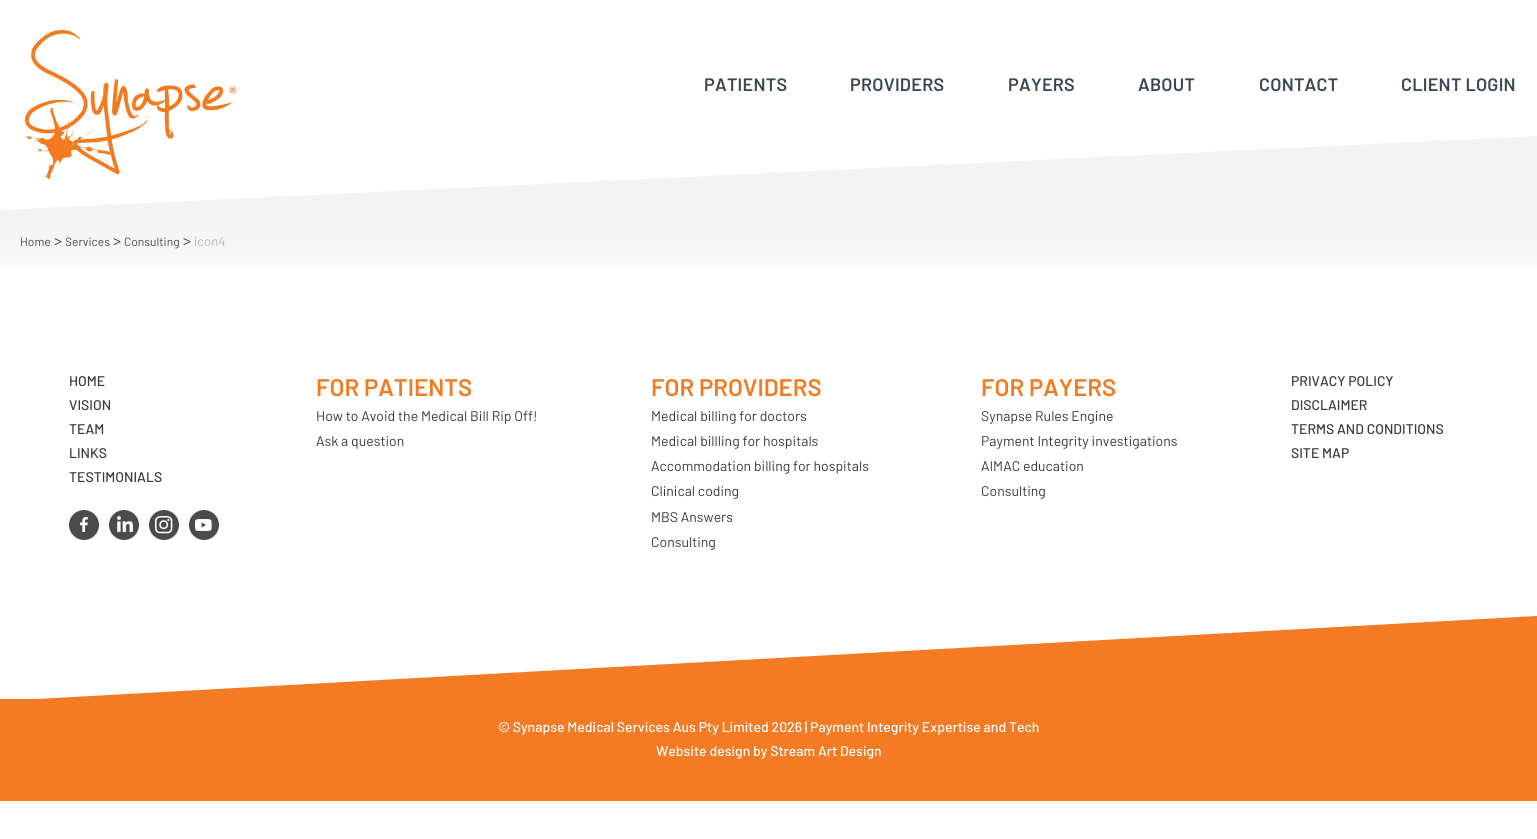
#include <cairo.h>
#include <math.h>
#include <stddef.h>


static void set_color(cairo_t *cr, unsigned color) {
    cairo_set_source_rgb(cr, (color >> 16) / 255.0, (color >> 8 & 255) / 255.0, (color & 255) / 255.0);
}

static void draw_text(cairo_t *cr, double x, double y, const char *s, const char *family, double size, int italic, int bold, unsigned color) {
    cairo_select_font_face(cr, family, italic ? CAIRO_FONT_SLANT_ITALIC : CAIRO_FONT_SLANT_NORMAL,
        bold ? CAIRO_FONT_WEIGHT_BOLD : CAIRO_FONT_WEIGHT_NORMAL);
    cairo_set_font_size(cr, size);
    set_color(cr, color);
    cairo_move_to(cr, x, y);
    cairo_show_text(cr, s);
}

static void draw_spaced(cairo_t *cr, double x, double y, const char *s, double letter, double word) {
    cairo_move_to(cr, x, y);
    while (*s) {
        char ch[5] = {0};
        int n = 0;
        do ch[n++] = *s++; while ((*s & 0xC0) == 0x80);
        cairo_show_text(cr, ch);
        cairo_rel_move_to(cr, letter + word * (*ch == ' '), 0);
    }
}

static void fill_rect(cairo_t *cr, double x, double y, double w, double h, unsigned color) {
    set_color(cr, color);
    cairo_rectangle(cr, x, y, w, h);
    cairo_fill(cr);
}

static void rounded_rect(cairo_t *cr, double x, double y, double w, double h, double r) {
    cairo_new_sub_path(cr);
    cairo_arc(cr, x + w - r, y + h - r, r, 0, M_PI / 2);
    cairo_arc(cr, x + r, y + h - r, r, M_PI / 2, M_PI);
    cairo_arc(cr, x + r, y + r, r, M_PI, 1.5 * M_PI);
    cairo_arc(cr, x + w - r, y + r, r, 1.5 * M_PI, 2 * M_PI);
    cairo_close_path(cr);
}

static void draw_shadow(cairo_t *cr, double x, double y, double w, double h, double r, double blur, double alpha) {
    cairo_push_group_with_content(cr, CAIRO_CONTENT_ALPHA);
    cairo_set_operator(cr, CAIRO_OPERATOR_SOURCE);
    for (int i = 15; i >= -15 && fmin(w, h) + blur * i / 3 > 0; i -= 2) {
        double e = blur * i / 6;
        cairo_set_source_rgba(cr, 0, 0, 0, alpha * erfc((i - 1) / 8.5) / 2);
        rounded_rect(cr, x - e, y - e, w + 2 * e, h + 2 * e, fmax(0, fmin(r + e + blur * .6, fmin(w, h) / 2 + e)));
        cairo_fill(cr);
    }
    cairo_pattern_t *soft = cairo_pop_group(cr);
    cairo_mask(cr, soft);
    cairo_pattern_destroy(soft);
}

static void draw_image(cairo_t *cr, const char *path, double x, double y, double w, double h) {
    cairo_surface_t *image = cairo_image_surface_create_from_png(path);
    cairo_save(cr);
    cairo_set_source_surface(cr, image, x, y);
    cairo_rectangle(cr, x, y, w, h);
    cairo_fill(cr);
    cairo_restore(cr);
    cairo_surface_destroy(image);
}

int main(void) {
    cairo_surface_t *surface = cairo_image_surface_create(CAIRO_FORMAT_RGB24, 1537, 839);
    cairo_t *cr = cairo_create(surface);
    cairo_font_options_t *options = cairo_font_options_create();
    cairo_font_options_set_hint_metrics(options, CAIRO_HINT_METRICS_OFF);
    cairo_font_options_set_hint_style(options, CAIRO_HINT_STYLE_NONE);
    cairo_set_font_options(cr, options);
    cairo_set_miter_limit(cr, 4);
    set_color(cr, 0xFFFFFF);
    cairo_paint(cr);
    cairo_save(cr);
    cairo_rectangle(cr, 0, 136, 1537, 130);
    cairo_clip(cr);
    set_color(cr, 0x000000);
    draw_shadow(cr, -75, -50, 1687, 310, 0, 25, 0.05);
    cairo_restore(cr);
    set_color(cr, 0xFFFFFF);
    cairo_new_path(cr);
    cairo_move_to(cr, 0, 110);
    cairo_line_to(cr, 0, 210);
    cairo_line_to(cr, 1537, 136);
    cairo_line_to(cr, 1537, 110);
    cairo_close_path(cr);
    cairo_fill(cr);
    draw_image(cr, "assets/img1.png", 25, 30, 211, 150);
    cairo_select_font_face(cr, "Barlow SemiBold", CAIRO_FONT_SLANT_NORMAL, CAIRO_FONT_WEIGHT_NORMAL);
    cairo_set_font_size(cr, 18);
    set_color(cr, 0x3B4852);
    draw_spaced(cr, 704, 91, "PATIENTS", 0.25, 0);
    draw_spaced(cr, 850, 91, "PROVIDERS", 0.25, 0);
    draw_spaced(cr, 1008, 91, "PAYERS", 0.25, 0);
    draw_spaced(cr, 1138, 91, "ABOUT", 0.25, 0);
    draw_spaced(cr, 1259, 91, "CONTACT", 0.25, 0);
    draw_spaced(cr, 1401, 91, "CLIENT LOGIN", 0.25, 0);
    draw_text(cr, 20, 246, "Home", "Barlow", 12, 0, 0, 0x4A4A4A);
    draw_text(cr, 54, 246, ">", "Barlow", 16, 0, 0, 0x3B4852);
    draw_text(cr, 65, 246, "Services", "Barlow", 12, 0, 0, 0x4A4A4A);
    draw_text(cr, 113, 246, ">", "Barlow", 16, 0, 0, 0x3B4852);
    draw_text(cr, 124, 246, "Consulting", "Barlow", 12, 0, 0, 0x4A4A4A);
    draw_text(cr, 183, 246, ">", "Barlow", 16, 0, 0, 0x3B4852);
    draw_text(cr, 194, 246, "icon4", "Barlow", 13, 0, 0, 0xB7B7B7);
    draw_text(cr, 69, 386, "HOME", "Barlow Medium", 14, 0, 0, 0x393A3B);
    draw_text(cr, 69, 410, "VISION", "Barlow Medium", 14, 0, 0, 0x393A3B);
    draw_text(cr, 69, 434, "TEAM", "Barlow Medium", 14, 0, 0, 0x393A3B);
    draw_text(cr, 69, 458, "LINKS", "Barlow Medium", 14, 0, 0, 0x393A3B);
    draw_text(cr, 69, 482, "TESTIMONIALS", "Barlow Medium", 14, 0, 0, 0x393A3B);
    set_color(cr, 0x4B4B4B);
    cairo_new_path(cr);
    cairo_arc(cr, 84, 525, 15, 0, 2 * M_PI);
    cairo_fill(cr);
    draw_image(cr, "assets/img2.png", 80, 517, 8, 15);
    cairo_arc(cr, 124, 525, 15, 0, 2 * M_PI);
    cairo_fill(cr);
    draw_image(cr, "assets/img3.png", 116, 515, 18, 18);
    cairo_arc(cr, 164, 525, 15, 0, 2 * M_PI);
    cairo_fill(cr);
    draw_image(cr, "assets/img4.png", 155, 516, 18, 18);
    cairo_arc(cr, 204, 525, 15, 0, 2 * M_PI);
    cairo_fill(cr);
    draw_image(cr, "assets/img5.png", 195, 519, 17, 12);
    draw_text(cr, 316, 396, "FOR PATIENTS", "Barlow SemiBold", 24, 0, 0, 0xF47A20);
    draw_text(cr, 316, 421, "How to Avoid the Medical Bill Rip Off!", "Barlow", 14, 0, 0, 0x393A3B);
    draw_text(cr, 316, 446, "Ask a question", "Barlow", 14, 0, 0, 0x393A3B);
    draw_text(cr, 651, 396, "FOR PROVIDERS", "Barlow SemiBold", 24, 0, 0, 0xF47A20);
    draw_text(cr, 651, 421, "Medical billing for doctors", "Barlow", 14, 0, 0, 0x393A3B);
    draw_text(cr, 651, 446, "Medical billling for hospitals", "Barlow", 14, 0, 0, 0x393A3B);
    draw_text(cr, 651, 471, "Accommodation billing for hospitals", "Barlow", 14, 0, 0, 0x393A3B);
    draw_text(cr, 651, 496, "Clinical coding", "Barlow", 14, 0, 0, 0x393A3B);
    draw_text(cr, 651, 522, "MBS Answers", "Barlow", 14, 0, 0, 0x393A3B);
    draw_text(cr, 651, 547, "Consulting", "Barlow", 14, 0, 0, 0x393A3B);
    draw_text(cr, 981, 396, "FOR PAYERS", "Barlow SemiBold", 24, 0, 0, 0xF47A20);
    draw_text(cr, 981, 421, "Synapse Rules Engine", "Barlow", 14, 0, 0, 0x393A3B);
    draw_text(cr, 981, 446, "Payment Integrity investigations", "Barlow", 14, 0, 0, 0x393A3B);
    draw_text(cr, 981, 471, "AIMAC education", "Barlow", 14, 0, 0, 0x393A3B);
    draw_text(cr, 981, 496, "Consulting", "Barlow", 14, 0, 0, 0x393A3B);
    draw_text(cr, 1291, 386, "PRIVACY POLICY", "Barlow Medium", 14, 0, 0, 0x393A3B);
    draw_text(cr, 1291, 410, "DISCLAIMER", "Barlow Medium", 14, 0, 0, 0x393A3B);
    draw_text(cr, 1291, 434, "TERMS AND CONDITIONS", "Barlow Medium", 14, 0, 0, 0x393A3B);
    draw_text(cr, 1291, 458, "SITE MAP", "Barlow Medium", 14, 0, 0, 0x393A3B);
    fill_rect(cr, 0, 699, 1537, 102, 0xF47A23);
    cairo_new_path(cr);
    cairo_move_to(cr, 0, 701);
    cairo_line_to(cr, 1537, 701);
    cairo_line_to(cr, 1537, 616);
    cairo_line_to(cr, 1536, 616);
    cairo_close_path(cr);
    cairo_fill(cr);
    draw_text(cr, 498, 732, "© Synapse Medical Services Aus Pty Limited 2026 | Payment Integrity Expertise and Tech", "Barlow Medium", 14, 0, 0, 0xFFFFFF);
    draw_text(cr, 656, 756, "Website design by Stream Art Design", "Barlow Medium", 14, 0, 0, 0xFFFFFF);
    cairo_surface_write_to_png(surface, "output.png");
    cairo_font_options_destroy(options);
    cairo_destroy(cr);
    cairo_surface_destroy(surface);
    return 0;
}
